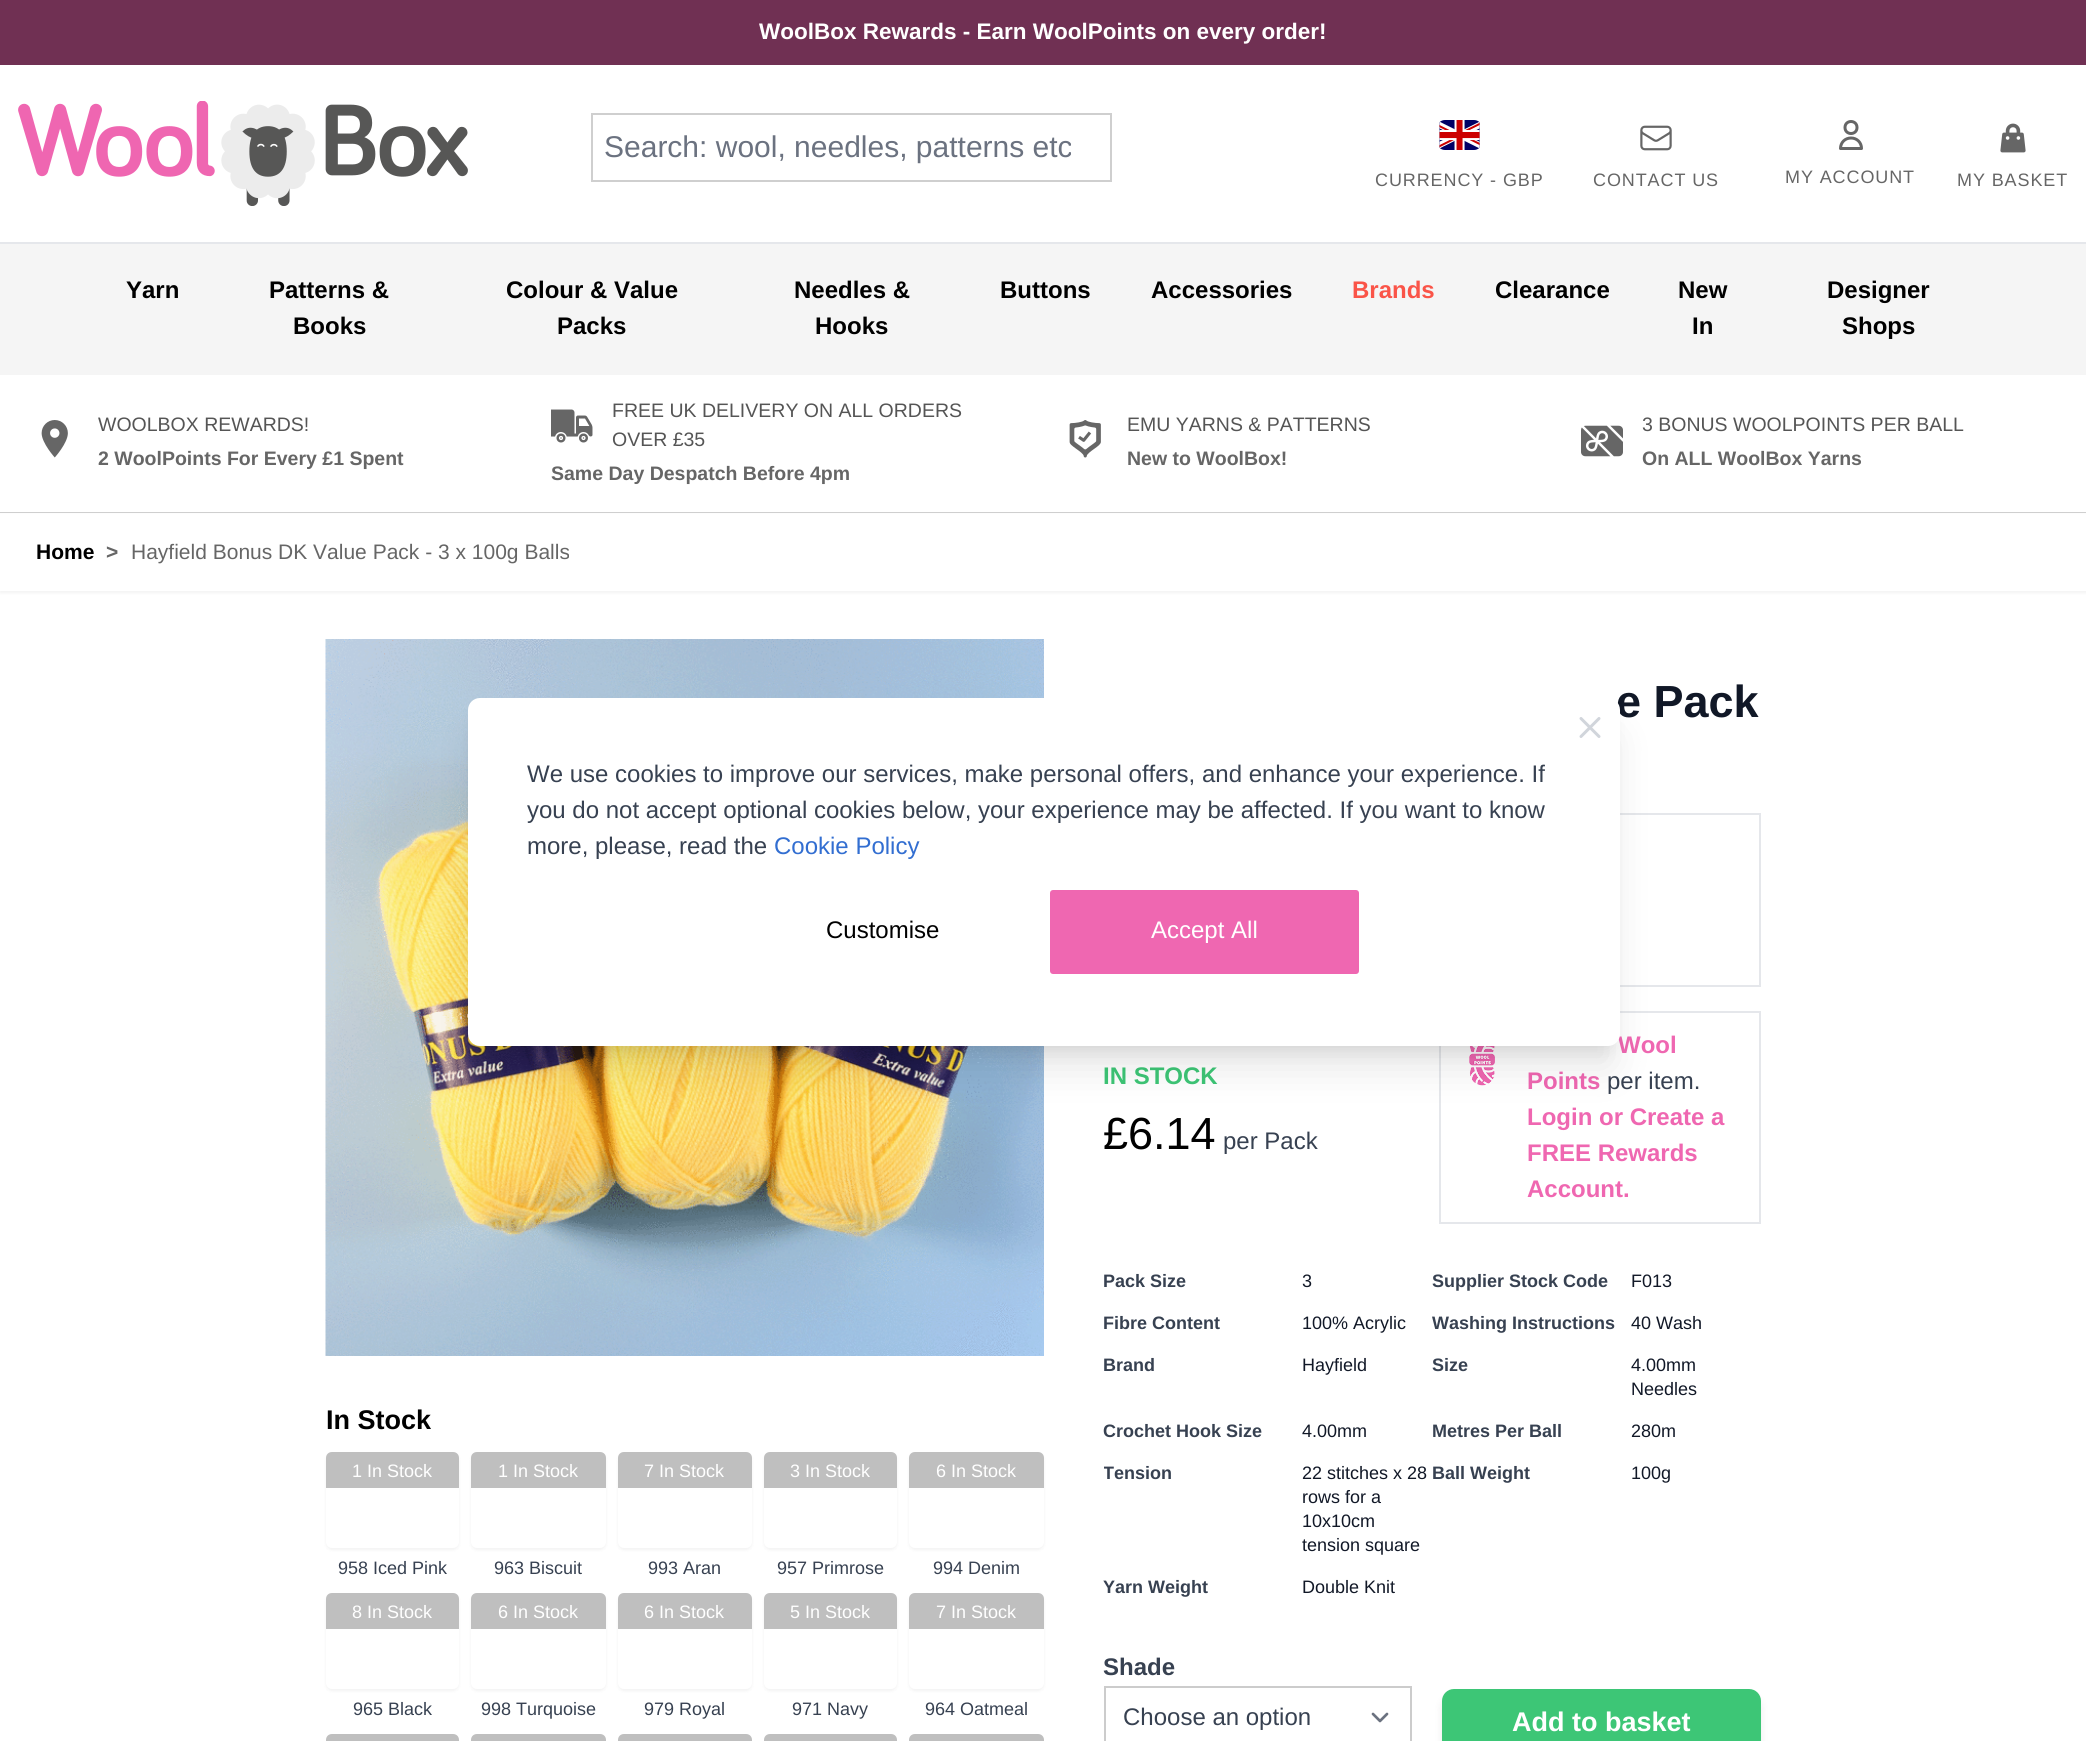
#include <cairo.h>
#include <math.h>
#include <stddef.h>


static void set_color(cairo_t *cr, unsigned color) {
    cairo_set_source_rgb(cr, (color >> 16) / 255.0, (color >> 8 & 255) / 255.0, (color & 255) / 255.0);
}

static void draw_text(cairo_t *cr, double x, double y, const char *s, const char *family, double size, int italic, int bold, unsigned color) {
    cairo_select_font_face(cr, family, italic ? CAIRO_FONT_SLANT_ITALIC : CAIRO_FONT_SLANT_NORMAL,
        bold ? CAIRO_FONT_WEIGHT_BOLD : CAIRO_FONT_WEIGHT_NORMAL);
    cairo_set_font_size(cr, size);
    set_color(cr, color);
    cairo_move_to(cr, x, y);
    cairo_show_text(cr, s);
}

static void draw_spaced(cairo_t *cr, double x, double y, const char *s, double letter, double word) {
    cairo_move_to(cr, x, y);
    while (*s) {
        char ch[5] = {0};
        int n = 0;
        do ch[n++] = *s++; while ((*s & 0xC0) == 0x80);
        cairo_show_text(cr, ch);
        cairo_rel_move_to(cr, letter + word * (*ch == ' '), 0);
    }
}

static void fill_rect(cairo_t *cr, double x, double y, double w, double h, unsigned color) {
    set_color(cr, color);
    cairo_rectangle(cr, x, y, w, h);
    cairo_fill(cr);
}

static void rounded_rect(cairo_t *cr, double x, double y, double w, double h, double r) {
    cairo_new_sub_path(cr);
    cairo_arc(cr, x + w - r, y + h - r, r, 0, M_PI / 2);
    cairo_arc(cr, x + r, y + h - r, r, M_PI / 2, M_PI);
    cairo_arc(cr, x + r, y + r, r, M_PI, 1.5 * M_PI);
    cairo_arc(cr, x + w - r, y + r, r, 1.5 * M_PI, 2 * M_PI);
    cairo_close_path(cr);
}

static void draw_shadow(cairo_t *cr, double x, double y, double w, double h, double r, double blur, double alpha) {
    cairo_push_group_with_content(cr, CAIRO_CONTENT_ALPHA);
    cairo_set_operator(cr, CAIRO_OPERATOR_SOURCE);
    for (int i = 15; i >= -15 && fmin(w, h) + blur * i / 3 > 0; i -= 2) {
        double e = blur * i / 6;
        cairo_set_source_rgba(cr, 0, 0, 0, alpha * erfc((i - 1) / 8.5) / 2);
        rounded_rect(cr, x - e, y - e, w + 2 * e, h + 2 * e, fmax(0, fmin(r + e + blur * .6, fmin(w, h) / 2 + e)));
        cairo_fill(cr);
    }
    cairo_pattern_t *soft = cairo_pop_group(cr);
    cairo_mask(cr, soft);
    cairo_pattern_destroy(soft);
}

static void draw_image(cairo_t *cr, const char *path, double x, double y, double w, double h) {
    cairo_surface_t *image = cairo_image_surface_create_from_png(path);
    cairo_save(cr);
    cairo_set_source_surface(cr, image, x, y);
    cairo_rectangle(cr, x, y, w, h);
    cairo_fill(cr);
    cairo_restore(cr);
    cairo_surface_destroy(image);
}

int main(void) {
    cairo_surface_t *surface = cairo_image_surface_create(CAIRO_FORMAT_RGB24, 2086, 1741);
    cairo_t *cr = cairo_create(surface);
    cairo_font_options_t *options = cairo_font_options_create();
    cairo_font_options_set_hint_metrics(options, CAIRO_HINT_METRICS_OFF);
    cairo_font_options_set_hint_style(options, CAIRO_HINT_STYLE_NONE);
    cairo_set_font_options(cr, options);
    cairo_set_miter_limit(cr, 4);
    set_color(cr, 0xFFFFFF);
    cairo_paint(cr);
    fill_rect(cr, 0, 0, 2086, 65, 0x703053);
    draw_text(cr, 759, 39, "WoolBox Rewards - Earn WoolPoints on every order!", "Liberation Sans", 22.5, 0, 1, 0xFFFFFF);
    cairo_rectangle(cr, 592, 114, 519, 67);
    set_color(cr, 0xCFCFCF);
    cairo_stroke(cr);
    cairo_save(cr);
    cairo_rectangle(cr, 605, 131, 466, 34);
    cairo_clip(cr);
    draw_text(cr, 604, 157, "Search: wool, needles, patterns etc", "Liberation Sans", 30, 0, 0, 0x6B7280);
    cairo_restore(cr);
    fill_rect(cr, 0, 242, 2086, 2, 0xE5E7EB);
    draw_image(cr, "assets/img1.png", 18, 101, 450, 105);
    draw_image(cr, "assets/img2.png", 1439, 120, 41, 30);
    cairo_select_font_face(cr, "Liberation Sans", CAIRO_FONT_SLANT_NORMAL, CAIRO_FONT_WEIGHT_NORMAL);
    cairo_set_font_size(cr, 18);
    set_color(cr, 0x666666);
    draw_spaced(cr, 1375, 186, "CURRENCY - GBP", 0.9, 0);
    draw_image(cr, "assets/img3.png", 1640, 125, 32, 26);
    draw_spaced(cr, 1593, 186, "CONTACT US", 0.9, 0);
    cairo_new_path(cr);
    cairo_move_to(cr, 1857, 127.5);
    cairo_curve_to(cr, 1857, 135.5, 1845, 135.5, 1845, 127.5);
    cairo_curve_to(cr, 1845, 119.5, 1857, 119.5, 1857, 127.5);
    cairo_close_path(cr);
    cairo_move_to(cr, 1851, 138);
    cairo_curve_to(cr, 1845, 138, 1840.5, 142.5, 1840.5, 148.5);
    cairo_line_to(cr, 1861.5, 148.5);
    cairo_curve_to(cr, 1861.5, 142.5, 1857, 138, 1851, 138);
    cairo_close_path(cr);
    cairo_set_line_width(cr, 3);
    cairo_set_line_cap(cr, CAIRO_LINE_CAP_ROUND);
    cairo_set_line_join(cr, CAIRO_LINE_JOIN_ROUND);
    cairo_stroke(cr);
    draw_spaced(cr, 1785, 183, "MY ACCOUNT", 0.9, 0);
    draw_image(cr, "assets/img4.png", 2000, 123, 26, 30);
    draw_spaced(cr, 1957, 186, "MY BASKET", 0.9, 0);
    fill_rect(cr, 0, 244, 2086, 131, 0xF5F5F5);
    draw_text(cr, 126, 298, "Yarn", "Liberation Sans", 24, 0, 1, 0x000000);
    draw_text(cr, 269, 298, "Patterns &", "Liberation Sans", 24, 0, 1, 0x000000);
    draw_text(cr, 293, 334, "Books", "Liberation Sans", 24, 0, 1, 0x000000);
    draw_text(cr, 506, 298, "Colour & Value", "Liberation Sans", 24, 0, 1, 0x000000);
    draw_text(cr, 557, 334, "Packs", "Liberation Sans", 24, 0, 1, 0x000000);
    draw_text(cr, 794, 298, "Needles &", "Liberation Sans", 24, 0, 1, 0x000000);
    draw_text(cr, 815, 334, "Hooks", "Liberation Sans", 24, 0, 1, 0x000000);
    draw_text(cr, 1000, 298, "Buttons", "Liberation Sans", 24, 0, 1, 0x000000);
    draw_text(cr, 1151, 298, "Accessories", "Liberation Sans", 24, 0, 1, 0x000000);
    draw_text(cr, 1352, 298, "Brands", "Liberation Sans", 24, 0, 1, 0xFA5448);
    draw_text(cr, 1495, 298, "Clearance", "Liberation Sans", 24, 0, 1, 0x000000);
    draw_text(cr, 1678, 298, "New", "Liberation Sans", 24, 0, 1, 0x000000);
    draw_text(cr, 1692, 334, "In", "Liberation Sans", 24, 0, 1, 0x000000);
    draw_text(cr, 1827, 298, "Designer", "Liberation Sans", 24, 0, 1, 0x000000);
    draw_text(cr, 1842, 334, "Shops", "Liberation Sans", 24, 0, 1, 0x000000);
    fill_rect(cr, 0, 512, 2086, 1, 0xCFCFCF);
    draw_image(cr, "assets/img5.png", 41, 420, 27, 38);
    draw_text(cr, 98, 431, "WOOLBOX REWARDS!", "Liberation Sans", 19.5, 0, 0, 0x555555);
    draw_text(cr, 98, 465, "2 WoolPoints For Every £1 Spent", "Liberation Sans", 19.5, 0, 1, 0x666666);
    draw_text(cr, 612, 417, "FREE UK DELIVERY ON ALL ORDERS", "Liberation Sans", 19.5, 0, 0, 0x555555);
    draw_text(cr, 612, 446, "OVER £35", "Liberation Sans", 19.5, 0, 0, 0x555555);
    draw_text(cr, 551, 480, "Same Day Despatch Before 4pm", "Liberation Sans", 19.5, 0, 1, 0x666666);
    draw_image(cr, "assets/img6.png", 551, 409, 42, 34);
    draw_image(cr, "assets/img7.png", 1069, 420, 32, 38);
    draw_text(cr, 1127, 431, "EMU YARNS & PATTERNS", "Liberation Sans", 19.5, 0, 0, 0x555555);
    draw_text(cr, 1127, 465, "New to WoolBox!", "Liberation Sans", 19.5, 0, 1, 0x666666);
    draw_image(cr, "assets/img8.png", 1581, 425, 42, 32);
    draw_text(cr, 1642, 431, "3 BONUS WOOLPOINTS PER BALL", "Liberation Sans", 19.5, 0, 0, 0x555555);
    draw_text(cr, 1642, 465, "On ALL WoolBox Yarns", "Liberation Sans", 19.5, 0, 1, 0x666666);
    set_color(cr, 0x000000);
    draw_shadow(cr, 0, 515, 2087, 78, 0, 1.5, 0.05);
    fill_rect(cr, 0, 514, 2086, 77, 0xFFFFFF);
    draw_text(cr, 36, 559, "Home", "Liberation Sans", 21, 0, 1, 0x000000);
    draw_text(cr, 106, 559, ">", "Liberation Sans", 21, 0, 1, 0x666666);
    draw_text(cr, 131, 559, "Hayfield Bonus DK Value Pack - 3 x 100g Balls", "Liberation Sans", 21, 0, 0, 0x666666);
    draw_image(cr, "assets/img9.png", 325, 639, 719, 717);
    draw_text(cr, 326, 1429, "In Stock", "Liberation Sans", 27, 0, 1, 0x000000);
    set_color(cr, 0x000000);
    draw_shadow(cr, 326, 1454, 133, 96, 6, 1.5, 0.05);
    set_color(cr, 0xFFFFFF);
    rounded_rect(cr, 326, 1452, 133, 96, 6);
    cairo_fill(cr);
    set_color(cr, 0xBFBFBF);
    cairo_new_path(cr);
    cairo_move_to(cr, 332, 1452);
    cairo_line_to(cr, 453, 1452);
    cairo_curve_to(cr, 456.5, 1452, 459, 1454.5, 459, 1458);
    cairo_line_to(cr, 459, 1488);
    cairo_line_to(cr, 326, 1488);
    cairo_line_to(cr, 326, 1458);
    cairo_curve_to(cr, 326, 1454.5, 328.5, 1452, 332, 1452);
    cairo_close_path(cr);
    cairo_fill(cr);
    draw_text(cr, 352, 1477, "1 In Stock", "Liberation Sans", 18, 0, 0, 0xFFFFFF);
    draw_text(cr, 338, 1574, "958 Iced Pink", "Liberation Sans", 18, 0, 0, 0x374151);
    set_color(cr, 0x000000);
    draw_shadow(cr, 471, 1454, 135, 96, 6, 1.5, 0.05);
    set_color(cr, 0xFFFFFF);
    rounded_rect(cr, 471, 1452, 135, 96, 6);
    cairo_fill(cr);
    set_color(cr, 0xBFBFBF);
    cairo_new_path(cr);
    cairo_move_to(cr, 477, 1452);
    cairo_line_to(cr, 600, 1452);
    cairo_curve_to(cr, 603.5, 1452, 606, 1454.5, 606, 1458);
    cairo_line_to(cr, 606, 1488);
    cairo_line_to(cr, 471, 1488);
    cairo_line_to(cr, 471, 1458);
    cairo_curve_to(cr, 471, 1454.5, 473.5, 1452, 477, 1452);
    cairo_close_path(cr);
    cairo_fill(cr);
    draw_text(cr, 498, 1477, "1 In Stock", "Liberation Sans", 18, 0, 0, 0xFFFFFF);
    draw_text(cr, 494, 1574, "963 Biscuit", "Liberation Sans", 18, 0, 0, 0x374151);
    set_color(cr, 0x000000);
    draw_shadow(cr, 618, 1454, 134, 96, 6, 1.5, 0.05);
    set_color(cr, 0xFFFFFF);
    rounded_rect(cr, 618, 1452, 134, 96, 6);
    cairo_fill(cr);
    set_color(cr, 0xBFBFBF);
    cairo_new_path(cr);
    cairo_move_to(cr, 624, 1452);
    cairo_line_to(cr, 746, 1452);
    cairo_curve_to(cr, 749.5, 1452, 752, 1454.5, 752, 1458);
    cairo_line_to(cr, 752, 1488);
    cairo_line_to(cr, 618, 1488);
    cairo_line_to(cr, 618, 1458);
    cairo_curve_to(cr, 618, 1454.5, 620.5, 1452, 624, 1452);
    cairo_close_path(cr);
    cairo_fill(cr);
    draw_text(cr, 644, 1477, "7 In Stock", "Liberation Sans", 18, 0, 0, 0xFFFFFF);
    draw_text(cr, 648, 1574, "993 Aran", "Liberation Sans", 18, 0, 0, 0x374151);
    set_color(cr, 0x000000);
    draw_shadow(cr, 764, 1454, 133, 96, 6, 1.5, 0.05);
    set_color(cr, 0xFFFFFF);
    rounded_rect(cr, 764, 1452, 133, 96, 6);
    cairo_fill(cr);
    set_color(cr, 0xBFBFBF);
    cairo_new_path(cr);
    cairo_move_to(cr, 770, 1452);
    cairo_line_to(cr, 891, 1452);
    cairo_curve_to(cr, 894.5, 1452, 897, 1454.5, 897, 1458);
    cairo_line_to(cr, 897, 1488);
    cairo_line_to(cr, 764, 1488);
    cairo_line_to(cr, 764, 1458);
    cairo_curve_to(cr, 764, 1454.5, 766.5, 1452, 770, 1452);
    cairo_close_path(cr);
    cairo_fill(cr);
    draw_text(cr, 790, 1477, "3 In Stock", "Liberation Sans", 18, 0, 0, 0xFFFFFF);
    draw_text(cr, 777, 1574, "957 Primrose", "Liberation Sans", 18, 0, 0, 0x374151);
    set_color(cr, 0x000000);
    draw_shadow(cr, 909, 1454, 135, 96, 6, 1.5, 0.05);
    set_color(cr, 0xFFFFFF);
    rounded_rect(cr, 909, 1452, 135, 96, 6);
    cairo_fill(cr);
    set_color(cr, 0xBFBFBF);
    cairo_new_path(cr);
    cairo_move_to(cr, 915, 1452);
    cairo_line_to(cr, 1038, 1452);
    cairo_curve_to(cr, 1041.5, 1452, 1044, 1454.5, 1044, 1458);
    cairo_line_to(cr, 1044, 1488);
    cairo_line_to(cr, 909, 1488);
    cairo_line_to(cr, 909, 1458);
    cairo_curve_to(cr, 909, 1454.5, 911.5, 1452, 915, 1452);
    cairo_close_path(cr);
    cairo_fill(cr);
    draw_text(cr, 936, 1477, "6 In Stock", "Liberation Sans", 18, 0, 0, 0xFFFFFF);
    draw_text(cr, 933, 1574, "994 Denim", "Liberation Sans", 18, 0, 0, 0x374151);
    set_color(cr, 0x000000);
    draw_shadow(cr, 326, 1595, 133, 96, 6, 1.5, 0.05);
    set_color(cr, 0xFFFFFF);
    rounded_rect(cr, 326, 1593, 133, 96, 6);
    cairo_fill(cr);
    set_color(cr, 0xBFBFBF);
    cairo_new_path(cr);
    cairo_move_to(cr, 332, 1593);
    cairo_line_to(cr, 453, 1593);
    cairo_curve_to(cr, 456.5, 1593, 459, 1595.5, 459, 1599);
    cairo_line_to(cr, 459, 1629);
    cairo_line_to(cr, 326, 1629);
    cairo_line_to(cr, 326, 1599);
    cairo_curve_to(cr, 326, 1595.5, 328.5, 1593, 332, 1593);
    cairo_close_path(cr);
    cairo_fill(cr);
    draw_text(cr, 352, 1618, "8 In Stock", "Liberation Sans", 18, 0, 0, 0xFFFFFF);
    draw_text(cr, 353, 1715, "965 Black", "Liberation Sans", 18, 0, 0, 0x374151);
    set_color(cr, 0x000000);
    draw_shadow(cr, 471, 1595, 135, 96, 6, 1.5, 0.05);
    set_color(cr, 0xFFFFFF);
    rounded_rect(cr, 471, 1593, 135, 96, 6);
    cairo_fill(cr);
    set_color(cr, 0xBFBFBF);
    cairo_new_path(cr);
    cairo_move_to(cr, 477, 1593);
    cairo_line_to(cr, 600, 1593);
    cairo_curve_to(cr, 603.5, 1593, 606, 1595.5, 606, 1599);
    cairo_line_to(cr, 606, 1629);
    cairo_line_to(cr, 471, 1629);
    cairo_line_to(cr, 471, 1599);
    cairo_curve_to(cr, 471, 1595.5, 473.5, 1593, 477, 1593);
    cairo_close_path(cr);
    cairo_fill(cr);
    draw_text(cr, 498, 1618, "6 In Stock", "Liberation Sans", 18, 0, 0, 0xFFFFFF);
    draw_text(cr, 481, 1715, "998 Turquoise", "Liberation Sans", 18, 0, 0, 0x374151);
    set_color(cr, 0x000000);
    draw_shadow(cr, 618, 1595, 134, 96, 6, 1.5, 0.05);
    set_color(cr, 0xFFFFFF);
    rounded_rect(cr, 618, 1593, 134, 96, 6);
    cairo_fill(cr);
    set_color(cr, 0xBFBFBF);
    cairo_new_path(cr);
    cairo_move_to(cr, 624, 1593);
    cairo_line_to(cr, 746, 1593);
    cairo_curve_to(cr, 749.5, 1593, 752, 1595.5, 752, 1599);
    cairo_line_to(cr, 752, 1629);
    cairo_line_to(cr, 618, 1629);
    cairo_line_to(cr, 618, 1599);
    cairo_curve_to(cr, 618, 1595.5, 620.5, 1593, 624, 1593);
    cairo_close_path(cr);
    cairo_fill(cr);
    draw_text(cr, 644, 1618, "6 In Stock", "Liberation Sans", 18, 0, 0, 0xFFFFFF);
    draw_text(cr, 644, 1715, "979 Royal", "Liberation Sans", 18, 0, 0, 0x374151);
    set_color(cr, 0x000000);
    draw_shadow(cr, 764, 1595, 133, 96, 6, 1.5, 0.05);
    set_color(cr, 0xFFFFFF);
    rounded_rect(cr, 764, 1593, 133, 96, 6);
    cairo_fill(cr);
    set_color(cr, 0xBFBFBF);
    cairo_new_path(cr);
    cairo_move_to(cr, 770, 1593);
    cairo_line_to(cr, 891, 1593);
    cairo_curve_to(cr, 894.5, 1593, 897, 1595.5, 897, 1599);
    cairo_line_to(cr, 897, 1629);
    cairo_line_to(cr, 764, 1629);
    cairo_line_to(cr, 764, 1599);
    cairo_curve_to(cr, 764, 1595.5, 766.5, 1593, 770, 1593);
    cairo_close_path(cr);
    cairo_fill(cr);
    draw_text(cr, 790, 1618, "5 In Stock", "Liberation Sans", 18, 0, 0, 0xFFFFFF);
    draw_text(cr, 792, 1715, "971 Navy", "Liberation Sans", 18, 0, 0, 0x374151);
    set_color(cr, 0x000000);
    draw_shadow(cr, 909, 1595, 135, 96, 6, 1.5, 0.05);
    set_color(cr, 0xFFFFFF);
    rounded_rect(cr, 909, 1593, 135, 96, 6);
    cairo_fill(cr);
    set_color(cr, 0xBFBFBF);
    cairo_new_path(cr);
    cairo_move_to(cr, 915, 1593);
    cairo_line_to(cr, 1038, 1593);
    cairo_curve_to(cr, 1041.5, 1593, 1044, 1595.5, 1044, 1599);
    cairo_line_to(cr, 1044, 1629);
    cairo_line_to(cr, 909, 1629);
    cairo_line_to(cr, 909, 1599);
    cairo_curve_to(cr, 909, 1595.5, 911.5, 1593, 915, 1593);
    cairo_close_path(cr);
    cairo_fill(cr);
    draw_text(cr, 936, 1618, "7 In Stock", "Liberation Sans", 18, 0, 0, 0xFFFFFF);
    draw_text(cr, 925, 1715, "964 Oatmeal", "Liberation Sans", 18, 0, 0, 0x374151);
    set_color(cr, 0xBFBFBF);
    cairo_new_path(cr);
    cairo_move_to(cr, 332, 1734);
    cairo_line_to(cr, 453, 1734);
    cairo_curve_to(cr, 456.5, 1734, 459, 1736.5, 459, 1740);
    cairo_line_to(cr, 459, 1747);
    cairo_line_to(cr, 326, 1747);
    cairo_line_to(cr, 326, 1740);
    cairo_curve_to(cr, 326, 1736.5, 328.5, 1734, 332, 1734);
    cairo_close_path(cr);
    cairo_fill(cr);
    cairo_new_path(cr);
    cairo_move_to(cr, 477, 1734);
    cairo_line_to(cr, 600, 1734);
    cairo_curve_to(cr, 603.5, 1734, 606, 1736.5, 606, 1740);
    cairo_line_to(cr, 606, 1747);
    cairo_line_to(cr, 471, 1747);
    cairo_line_to(cr, 471, 1740);
    cairo_curve_to(cr, 471, 1736.5, 473.5, 1734, 477, 1734);
    cairo_close_path(cr);
    cairo_fill(cr);
    cairo_new_path(cr);
    cairo_move_to(cr, 624, 1734);
    cairo_line_to(cr, 746, 1734);
    cairo_curve_to(cr, 749.5, 1734, 752, 1736.5, 752, 1740);
    cairo_line_to(cr, 752, 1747);
    cairo_line_to(cr, 618, 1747);
    cairo_line_to(cr, 618, 1740);
    cairo_curve_to(cr, 618, 1736.5, 620.5, 1734, 624, 1734);
    cairo_close_path(cr);
    cairo_fill(cr);
    cairo_new_path(cr);
    cairo_move_to(cr, 770, 1734);
    cairo_line_to(cr, 891, 1734);
    cairo_curve_to(cr, 894.5, 1734, 897, 1736.5, 897, 1740);
    cairo_line_to(cr, 897, 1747);
    cairo_line_to(cr, 764, 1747);
    cairo_line_to(cr, 764, 1740);
    cairo_curve_to(cr, 764, 1736.5, 766.5, 1734, 770, 1734);
    cairo_close_path(cr);
    cairo_fill(cr);
    cairo_new_path(cr);
    cairo_move_to(cr, 915, 1734);
    cairo_line_to(cr, 1038, 1734);
    cairo_curve_to(cr, 1041.5, 1734, 1044, 1736.5, 1044, 1740);
    cairo_line_to(cr, 1044, 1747);
    cairo_line_to(cr, 909, 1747);
    cairo_line_to(cr, 909, 1740);
    cairo_curve_to(cr, 909, 1736.5, 911.5, 1734, 915, 1734);
    cairo_close_path(cr);
    cairo_fill(cr);
    draw_text(cr, 1616, 717, "e Pack", "Liberation Sans", 45, 0, 1, 0x111827);
    cairo_rectangle(cr, 1105, 814, 655, 172);
    set_color(cr, 0xE5E7EB);
    cairo_set_line_width(cr, 2);
    cairo_set_line_cap(cr, CAIRO_LINE_CAP_BUTT);
    cairo_set_line_join(cr, CAIRO_LINE_JOIN_MITER);
    cairo_stroke(cr);
    draw_text(cr, 1103, 1084, "IN STOCK", "Liberation Sans", 24, 0, 1, 0x3DC676);
    draw_text(cr, 1103, 1149, "£6.14", "Liberation Sans", 45, 0, 0, 0x000000);
    draw_text(cr, 1223, 1149, "per Pack", "Liberation Sans", 24, 0, 0, 0x374151);
    cairo_rectangle(cr, 1440, 1012, 320, 211);
    set_color(cr, 0xE5E7EB);
    cairo_stroke(cr);
    draw_image(cr, "assets/img10.png", 1469, 1046, 26, 40);
    draw_text(cr, 1618, 1053, "Wool", "Liberation Sans", 24, 0, 1, 0xEF67B1);
    draw_text(cr, 1527, 1089, "Points", "Liberation Sans", 24, 0, 1, 0xEF67B1);
    draw_text(cr, 1607, 1089, "per item.", "Liberation Sans", 24, 0, 0, 0x374151);
    draw_text(cr, 1527, 1125, "Login or Create a", "Liberation Sans", 24, 0, 1, 0xEF67B1);
    draw_text(cr, 1527, 1161, "FREE Rewards", "Liberation Sans", 24, 0, 1, 0xEF67B1);
    draw_text(cr, 1527, 1197, "Account.", "Liberation Sans", 24, 0, 1, 0xEF67B1);
    draw_text(cr, 1103, 1287, "Pack Size", "Liberation Sans", 18, 0, 1, 0x374151);
    draw_text(cr, 1302, 1287, "3", "Liberation Sans", 18, 0, 0, 0x111827);
    draw_text(cr, 1432, 1287, "Supplier Stock Code", "Liberation Sans", 18, 0, 1, 0x374151);
    draw_text(cr, 1631, 1287, "F013", "Liberation Sans", 18, 0, 0, 0x111827);
    draw_text(cr, 1103, 1329, "Fibre Content", "Liberation Sans", 18, 0, 1, 0x374151);
    draw_text(cr, 1302, 1329, "100% Acrylic", "Liberation Sans", 18, 0, 0, 0x111827);
    draw_text(cr, 1432, 1329, "Washing Instructions", "Liberation Sans", 18, 0, 1, 0x374151);
    draw_text(cr, 1631, 1329, "40 Wash", "Liberation Sans", 18, 0, 0, 0x111827);
    draw_text(cr, 1103, 1371, "Brand", "Liberation Sans", 18, 0, 1, 0x374151);
    draw_text(cr, 1302, 1371, "Hayfield", "Liberation Sans", 18, 0, 0, 0x111827);
    draw_text(cr, 1432, 1371, "Size", "Liberation Sans", 18, 0, 1, 0x374151);
    draw_text(cr, 1631, 1371, "4.00mm", "Liberation Sans", 18, 0, 0, 0x111827);
    draw_text(cr, 1631, 1395, "Needles", "Liberation Sans", 18, 0, 0, 0x111827);
    draw_text(cr, 1103, 1437, "Crochet Hook Size", "Liberation Sans", 18, 0, 1, 0x374151);
    draw_text(cr, 1302, 1437, "4.00mm", "Liberation Sans", 18, 0, 0, 0x111827);
    draw_text(cr, 1432, 1437, "Metres Per Ball", "Liberation Sans", 18, 0, 1, 0x374151);
    draw_text(cr, 1631, 1437, "280m", "Liberation Sans", 18, 0, 0, 0x111827);
    cairo_save(cr);
    cairo_rectangle(cr, 1104, 1248, 657, 360);
    cairo_clip(cr);
    draw_text(cr, 1103, 1479, "Tension", "Liberation Sans", 18, 0, 1, 0x374151);
    cairo_restore(cr);
    draw_text(cr, 1302, 1479, "22 stitches x 28", "Liberation Sans", 18, 0, 0, 0x111827);
    draw_text(cr, 1302, 1503, "rows for a", "Liberation Sans", 18, 0, 0, 0x111827);
    draw_text(cr, 1302, 1527, "10x10cm", "Liberation Sans", 18, 0, 0, 0x111827);
    draw_text(cr, 1302, 1551, "tension square", "Liberation Sans", 18, 0, 0, 0x111827);
    draw_text(cr, 1432, 1479, "Ball Weight", "Liberation Sans", 18, 0, 1, 0x374151);
    draw_text(cr, 1631, 1479, "100g", "Liberation Sans", 18, 0, 0, 0x111827);
    draw_text(cr, 1103, 1593, "Yarn Weight", "Liberation Sans", 18, 0, 1, 0x374151);
    draw_text(cr, 1302, 1593, "Double Knit", "Liberation Sans", 18, 0, 0, 0x111827);
    draw_text(cr, 1103, 1675, "Shade", "Liberation Sans", 24, 0, 1, 0x374151);
    cairo_new_path(cr);
    cairo_move_to(cr, 1373, 1714);
    cairo_line_to(cr, 1380, 1721);
    cairo_line_to(cr, 1387, 1714);
    set_color(cr, 0x6B7280);
    cairo_set_line_width(cr, 2.7);
    cairo_set_line_cap(cr, CAIRO_LINE_CAP_ROUND);
    cairo_set_line_join(cr, CAIRO_LINE_JOIN_ROUND);
    cairo_stroke(cr);
    cairo_rectangle(cr, 1105, 1687, 306, 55);
    set_color(cr, 0xCCCCCC);
    cairo_set_line_width(cr, 2);
    cairo_set_line_cap(cr, CAIRO_LINE_CAP_BUTT);
    cairo_set_line_join(cr, CAIRO_LINE_JOIN_MITER);
    cairo_stroke(cr);
    draw_text(cr, 1123, 1725, "Choose an option", "Liberation Sans", 24, 0, 0, 0x374151);
    set_color(cr, 0x000000);
    draw_shadow(cr, 1443, 1697, 317, 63, 11, 4.5, 0.1);
    set_color(cr, 0x3DC676);
    rounded_rect(cr, 1442, 1689, 319, 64, 12);
    cairo_fill(cr);
    draw_text(cr, 1512, 1731, "Add to basket", "Liberation Sans", 27, 0, 1, 0xFFFFFF);
    set_color(cr, 0x000000);
    draw_shadow(cr, 477, 719, 1134, 330, 3, 7.5, 0.1);
    draw_shadow(cr, 476, 735, 1137, 333, 5, 19, 0.1);
    set_color(cr, 0xFFFFFF);
    rounded_rect(cr, 468, 698, 1152, 348, 12);
    cairo_fill(cr);
    cairo_new_path(cr);
    cairo_move_to(cr, 1581, 736.5);
    cairo_line_to(cr, 1599, 718.5);
    cairo_move_to(cr, 1581, 718.5);
    cairo_line_to(cr, 1599, 736.5);
    set_color(cr, 0xD1D5DB);
    cairo_set_line_width(cr, 3);
    cairo_set_line_cap(cr, CAIRO_LINE_CAP_ROUND);
    cairo_set_line_join(cr, CAIRO_LINE_JOIN_ROUND);
    cairo_stroke(cr);
    draw_text(cr, 527, 782, "We use cookies to improve our services, make personal offers, and enhance your experience. If", "Liberation Sans", 24, 0, 0, 0x374151);
    draw_text(cr, 527, 818, "you do not accept optional cookies below, your experience may be affected. If you want to know", "Liberation Sans", 24, 0, 0, 0x374151);
    draw_text(cr, 527, 854, "more, please, read the", "Liberation Sans", 24, 0, 0, 0x374151);
    draw_text(cr, 774, 854, "Cookie Policy", "Liberation Sans", 24, 0, 0, 0x326ED1);
    draw_text(cr, 826, 938, "Customise", "Liberation Sans", 24, 0, 0, 0x000000);
    set_color(cr, 0xEF67B1);
    rounded_rect(cr, 1050, 890, 309, 84, 3);
    cairo_fill(cr);
    draw_text(cr, 1151, 938, "Accept All", "Liberation Sans", 24, 0, 0, 0xFFFFFF);
    cairo_surface_write_to_png(surface, "output.png");
    cairo_font_options_destroy(options);
    cairo_destroy(cr);
    cairo_surface_destroy(surface);
    return 0;
}
